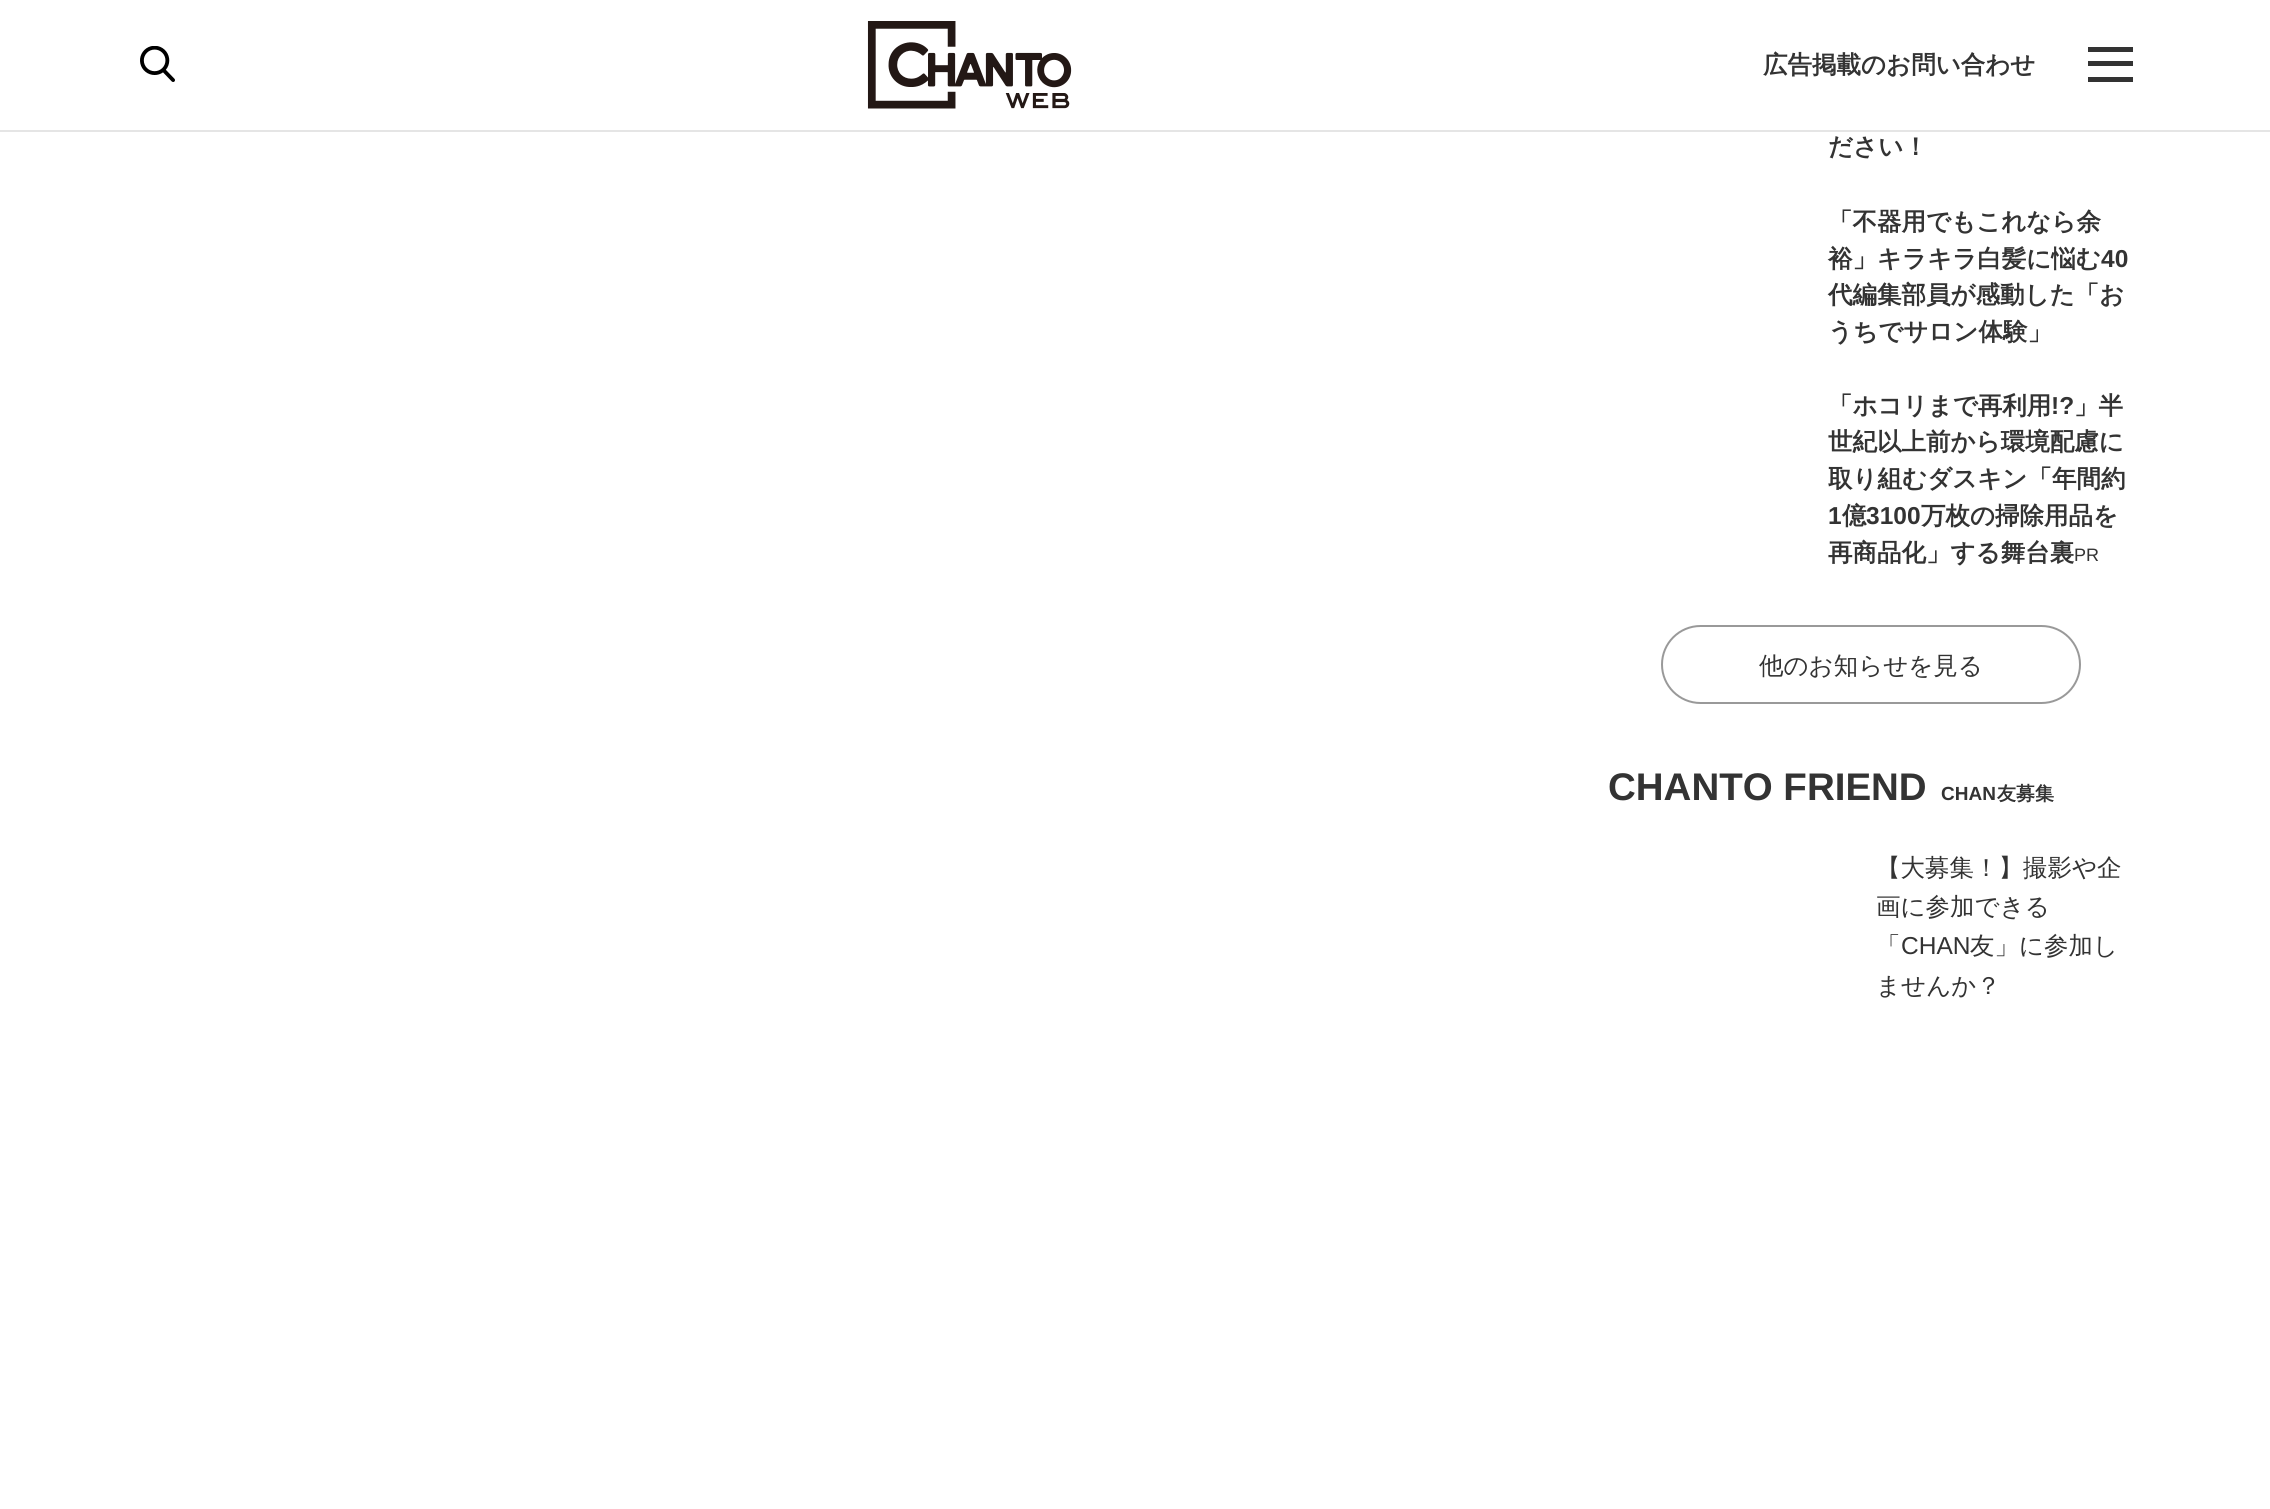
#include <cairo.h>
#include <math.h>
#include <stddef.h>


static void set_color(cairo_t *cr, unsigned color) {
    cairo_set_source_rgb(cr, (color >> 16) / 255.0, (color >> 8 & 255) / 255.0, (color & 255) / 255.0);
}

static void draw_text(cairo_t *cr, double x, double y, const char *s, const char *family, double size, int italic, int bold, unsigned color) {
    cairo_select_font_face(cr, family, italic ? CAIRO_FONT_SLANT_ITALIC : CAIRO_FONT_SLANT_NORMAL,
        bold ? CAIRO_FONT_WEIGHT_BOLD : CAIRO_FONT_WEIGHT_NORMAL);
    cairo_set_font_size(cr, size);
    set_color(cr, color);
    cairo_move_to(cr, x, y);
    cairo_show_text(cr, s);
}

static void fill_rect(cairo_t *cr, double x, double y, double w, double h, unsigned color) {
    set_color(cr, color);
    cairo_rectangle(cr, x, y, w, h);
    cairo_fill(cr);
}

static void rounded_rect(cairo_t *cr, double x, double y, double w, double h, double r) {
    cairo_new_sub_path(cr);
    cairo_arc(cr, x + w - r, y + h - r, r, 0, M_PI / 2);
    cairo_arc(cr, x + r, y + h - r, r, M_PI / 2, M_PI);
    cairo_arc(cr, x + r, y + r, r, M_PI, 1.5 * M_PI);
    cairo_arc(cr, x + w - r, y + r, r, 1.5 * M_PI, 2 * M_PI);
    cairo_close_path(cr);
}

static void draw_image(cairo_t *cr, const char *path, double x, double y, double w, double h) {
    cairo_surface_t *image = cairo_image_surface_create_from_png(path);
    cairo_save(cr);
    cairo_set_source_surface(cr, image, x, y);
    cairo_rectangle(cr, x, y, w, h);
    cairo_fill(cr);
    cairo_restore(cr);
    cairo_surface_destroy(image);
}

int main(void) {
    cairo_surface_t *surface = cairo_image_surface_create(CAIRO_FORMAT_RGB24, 2270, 1509);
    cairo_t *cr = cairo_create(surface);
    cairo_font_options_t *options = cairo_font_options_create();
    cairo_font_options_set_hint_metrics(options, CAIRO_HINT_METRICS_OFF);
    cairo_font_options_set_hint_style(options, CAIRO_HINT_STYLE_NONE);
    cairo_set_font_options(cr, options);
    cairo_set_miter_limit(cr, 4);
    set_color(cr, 0xFFFFFF);
    cairo_paint(cr);
    fill_rect(cr, 0, 130, 2270, 2, 0xE5E5E5);
    draw_image(cr, "assets/img1.png", 140, 46, 35, 36);
    draw_image(cr, "assets/img2.png", 867, 21, 205, 88);
    draw_text(cr, 1763, 73, "広告掲載のお問い合わせ", "WenQuanYi Zen Hei", 24.5, 0, 1, 0x333333);
    fill_rect(cr, 2088, 47, 45, 5, 0x333333);
    fill_rect(cr, 2088, 61, 45, 5, 0x333333);
    fill_rect(cr, 2088, 77, 45, 5, 0x333333);
    draw_text(cr, 1828, 155, "ださい！", "WenQuanYi Zen Hei", 24.5, 0, 1, 0x333333);
    draw_text(cr, 1828, 230, "「不器用でもこれなら余", "WenQuanYi Zen Hei", 24.5, 0, 1, 0x333333);
    draw_text(cr, 1828, 267, "裕」キラキラ白髪に悩む", "WenQuanYi Zen Hei", 24.5, 0, 1, 0x333333);
    draw_text(cr, 2101, 267, "40", "Liberation Sans", 24.5, 0, 1, 0x333333);
    draw_text(cr, 1828, 303, "代編集部員が感動した「お", "WenQuanYi Zen Hei", 24.5, 0, 1, 0x333333);
    draw_text(cr, 1828, 340, "うちでサロン体験」", "WenQuanYi Zen Hei", 24.5, 0, 1, 0x333333);
    draw_text(cr, 1828, 414, "「ホコリまで再利用", "WenQuanYi Zen Hei", 24.5, 0, 1, 0x333333);
    draw_text(cr, 2051, 414, "!?", "Liberation Sans", 24.5, 0, 1, 0x333333);
    draw_text(cr, 2074, 414, "」半", "WenQuanYi Zen Hei", 24.5, 0, 1, 0x333333);
    draw_text(cr, 1828, 450, "世紀以上前から環境配慮に", "WenQuanYi Zen Hei", 24.5, 0, 1, 0x333333);
    draw_text(cr, 1828, 487, "取り組むダスキン「年間約", "WenQuanYi Zen Hei", 24.5, 0, 1, 0x333333);
    draw_text(cr, 1828, 524, "1", "Liberation Sans", 24.5, 0, 1, 0x333333);
    draw_text(cr, 1842, 524, "億", "WenQuanYi Zen Hei", 24.5, 0, 1, 0x333333);
    draw_text(cr, 1866, 524, "3100", "Liberation Sans", 24.5, 0, 1, 0x333333);
    draw_text(cr, 1921, 524, "万枚の掃除用品を", "WenQuanYi Zen Hei", 24.5, 0, 1, 0x333333);
    draw_text(cr, 1828, 561, "再商品化」する舞台裏", "WenQuanYi Zen Hei", 24.5, 0, 1, 0x333333);
    draw_text(cr, 2074, 561, "PR", "Liberation Sans", 18, 0, 0, 0x333333);
    rounded_rect(cr, 1662, 626, 418, 77, 38.5);
    set_color(cr, 0x999999);
    cairo_stroke(cr);
    draw_text(cr, 1759, 674, "他のお知らせを見る", "WenQuanYi Zen Hei Medium", 24.5, 0, 0, 0x333333);
    draw_text(cr, 1608, 800, "CHANTO FRIEND", "Liberation Sans", 38.5, 0, 1, 0x333333);
    draw_text(cr, 1941, 800, "CHAN", "Liberation Sans", 19, 0, 1, 0x333333);
    draw_text(cr, 1997, 800, "友募集", "WenQuanYi Zen Hei", 19, 0, 1, 0x333333);
    draw_text(cr, 1876, 876, "【大募集！】撮影や企", "WenQuanYi Zen Hei Medium", 24.5, 0, 0, 0x333333);
    draw_text(cr, 1876, 915, "画に参加できる", "WenQuanYi Zen Hei Medium", 24.5, 0, 0, 0x333333);
    draw_text(cr, 1876, 954, "「", "WenQuanYi Zen Hei Medium", 24.5, 0, 0, 0x333333);
    draw_text(cr, 1901, 954, "CHAN", "Liberation Sans", 24.5, 0, 0, 0x333333);
    draw_text(cr, 1970, 954, "友」に参加し", "WenQuanYi Zen Hei Medium", 24.5, 0, 0, 0x333333);
    draw_text(cr, 1876, 994, "ませんか？", "WenQuanYi Zen Hei Medium", 24.5, 0, 0, 0x333333);
    cairo_surface_write_to_png(surface, "output.png");
    cairo_font_options_destroy(options);
    cairo_destroy(cr);
    cairo_surface_destroy(surface);
    return 0;
}
